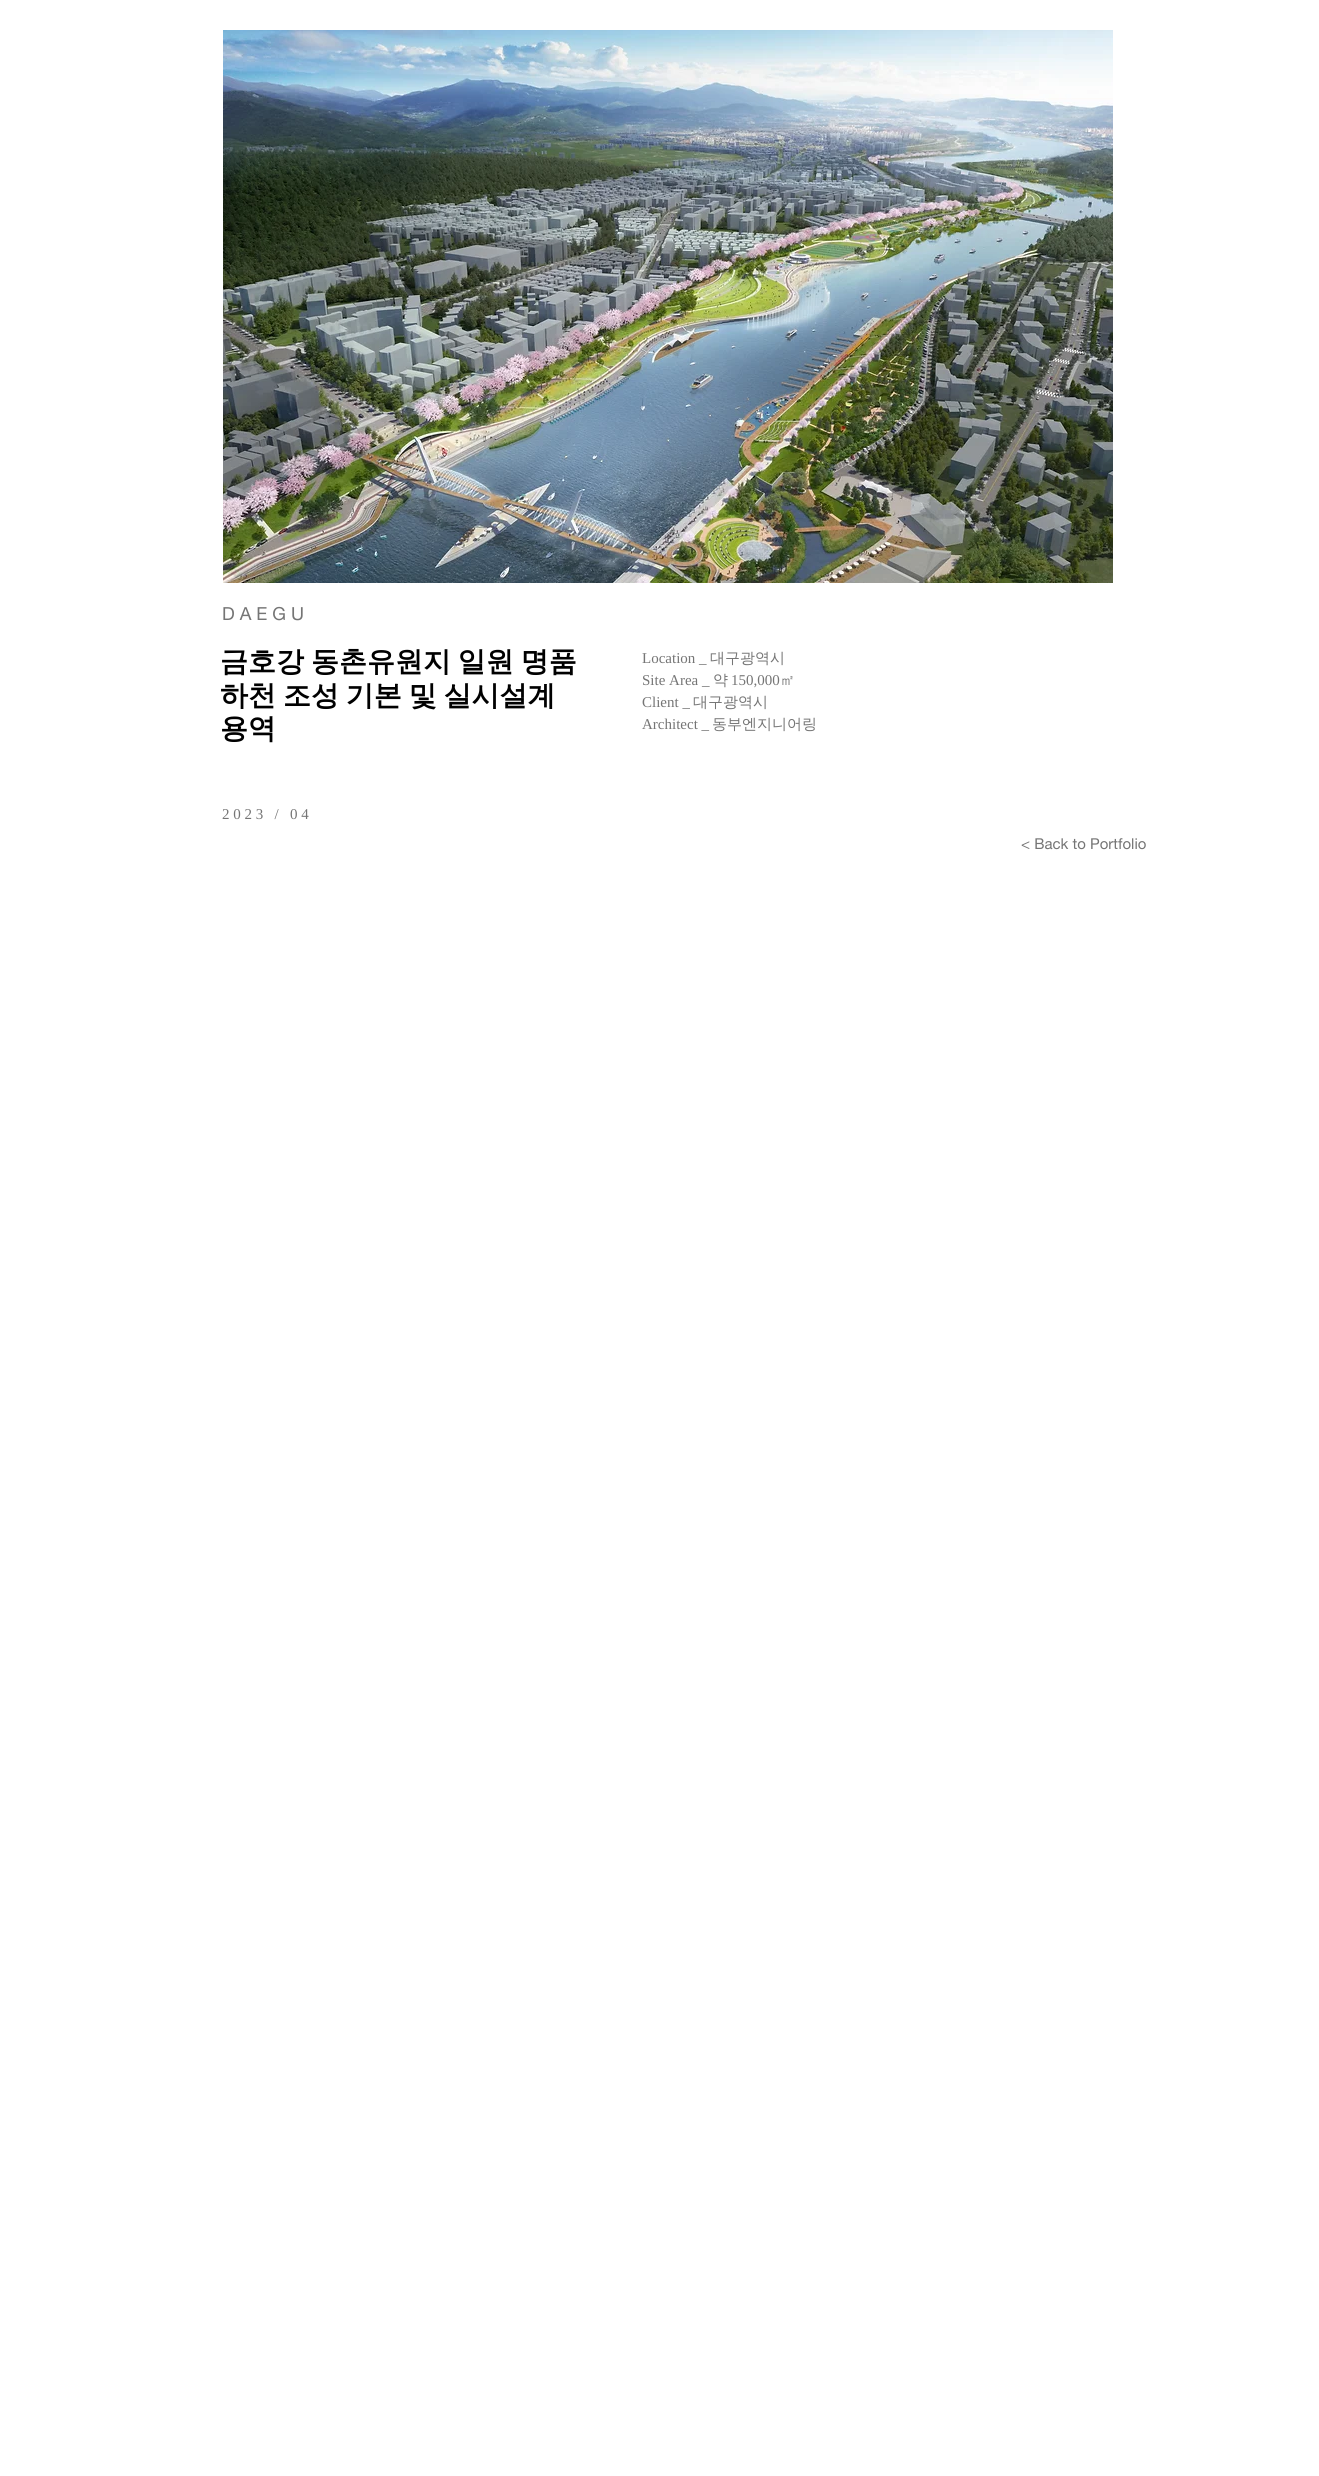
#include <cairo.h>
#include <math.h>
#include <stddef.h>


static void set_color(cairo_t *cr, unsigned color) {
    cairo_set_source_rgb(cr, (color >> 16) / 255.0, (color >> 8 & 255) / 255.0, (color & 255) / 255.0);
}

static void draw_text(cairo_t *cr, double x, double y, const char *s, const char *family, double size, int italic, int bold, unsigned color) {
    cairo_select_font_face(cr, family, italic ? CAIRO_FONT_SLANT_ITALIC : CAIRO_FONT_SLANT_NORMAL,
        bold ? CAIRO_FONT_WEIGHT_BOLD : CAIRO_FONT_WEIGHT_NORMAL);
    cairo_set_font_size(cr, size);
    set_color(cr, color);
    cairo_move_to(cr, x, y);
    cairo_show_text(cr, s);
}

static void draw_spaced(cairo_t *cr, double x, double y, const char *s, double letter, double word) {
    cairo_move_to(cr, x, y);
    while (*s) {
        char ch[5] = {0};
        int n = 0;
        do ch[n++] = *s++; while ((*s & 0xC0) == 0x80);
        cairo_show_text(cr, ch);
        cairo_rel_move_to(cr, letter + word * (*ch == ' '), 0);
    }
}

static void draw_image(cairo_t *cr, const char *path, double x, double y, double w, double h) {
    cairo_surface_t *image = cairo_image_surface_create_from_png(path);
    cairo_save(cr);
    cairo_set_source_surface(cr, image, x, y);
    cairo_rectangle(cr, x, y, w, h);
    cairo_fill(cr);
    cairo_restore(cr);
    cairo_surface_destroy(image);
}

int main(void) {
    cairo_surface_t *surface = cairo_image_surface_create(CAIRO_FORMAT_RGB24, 1319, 2476);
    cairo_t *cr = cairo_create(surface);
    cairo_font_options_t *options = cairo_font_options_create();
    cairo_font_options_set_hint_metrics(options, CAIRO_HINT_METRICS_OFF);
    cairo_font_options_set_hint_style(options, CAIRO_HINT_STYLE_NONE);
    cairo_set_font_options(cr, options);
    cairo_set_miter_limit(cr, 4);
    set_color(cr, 0xFFFFFF);
    cairo_paint(cr);
    draw_image(cr, "assets/img1.png", 223, 30, 890, 553);
    draw_text(cr, 222, 620, "D A E G U", "helvetica neue", 18, 0, 0, 0x757575);
    cairo_select_font_face(cr, "WenQuanYi Zen Hei", CAIRO_FONT_SLANT_NORMAL, CAIRO_FONT_WEIGHT_BOLD);
    cairo_set_font_size(cr, 28);
    set_color(cr, 0x000000);
    draw_spaced(cr, 220, 671, "금호강 동촌유원지 일원 명품", 0, -1.5);
    draw_spaced(cr, 220, 705, "하천 조성 기본 및 실시설계", 0, -1.5);
    draw_text(cr, 220, 738, "용역", "WenQuanYi Zen Hei", 28, 0, 1, 0x000000);
    draw_text(cr, 642, 663, "Location _", "Liberation Serif", 15, 0, 0, 0x757575);
    draw_text(cr, 710, 663, "대구광역시", "WenQuanYi Zen Hei Medium", 15, 0, 0, 0x757575);
    draw_text(cr, 642, 685, "Site Area _", "Liberation Serif", 15, 0, 0, 0x757575);
    draw_text(cr, 713, 685, "약", "WenQuanYi Zen Hei Medium", 15, 0, 0, 0x757575);
    draw_text(cr, 731, 685, "150,000", "Liberation Serif", 15, 0, 0, 0x757575);
    draw_text(cr, 780, 685, "㎡", "WenQuanYi Zen Hei Medium", 15, 0, 0, 0x757575);
    draw_text(cr, 642, 707, "Client _", "Liberation Serif", 15, 0, 0, 0x757575);
    draw_text(cr, 693, 707, "대구광역시", "WenQuanYi Zen Hei Medium", 15, 0, 0, 0x757575);
    draw_text(cr, 642, 729, "Architect _", "Liberation Serif", 15, 0, 0, 0x757575);
    draw_text(cr, 712, 729, "동부엔지니어링", "WenQuanYi Zen Hei Medium", 15, 0, 0, 0x757575);
    cairo_select_font_face(cr, "Liberation Serif", CAIRO_FONT_SLANT_NORMAL, CAIRO_FONT_WEIGHT_NORMAL);
    draw_spaced(cr, 222, 819, "2023 / 04", 3.75, 0);
    draw_text(cr, 1021, 849, "< Back to Portfolio", "helvetica neue", 15, 0, 0, 0x757575);
    cairo_surface_write_to_png(surface, "output.png");
    cairo_font_options_destroy(options);
    cairo_destroy(cr);
    cairo_surface_destroy(surface);
    return 0;
}
